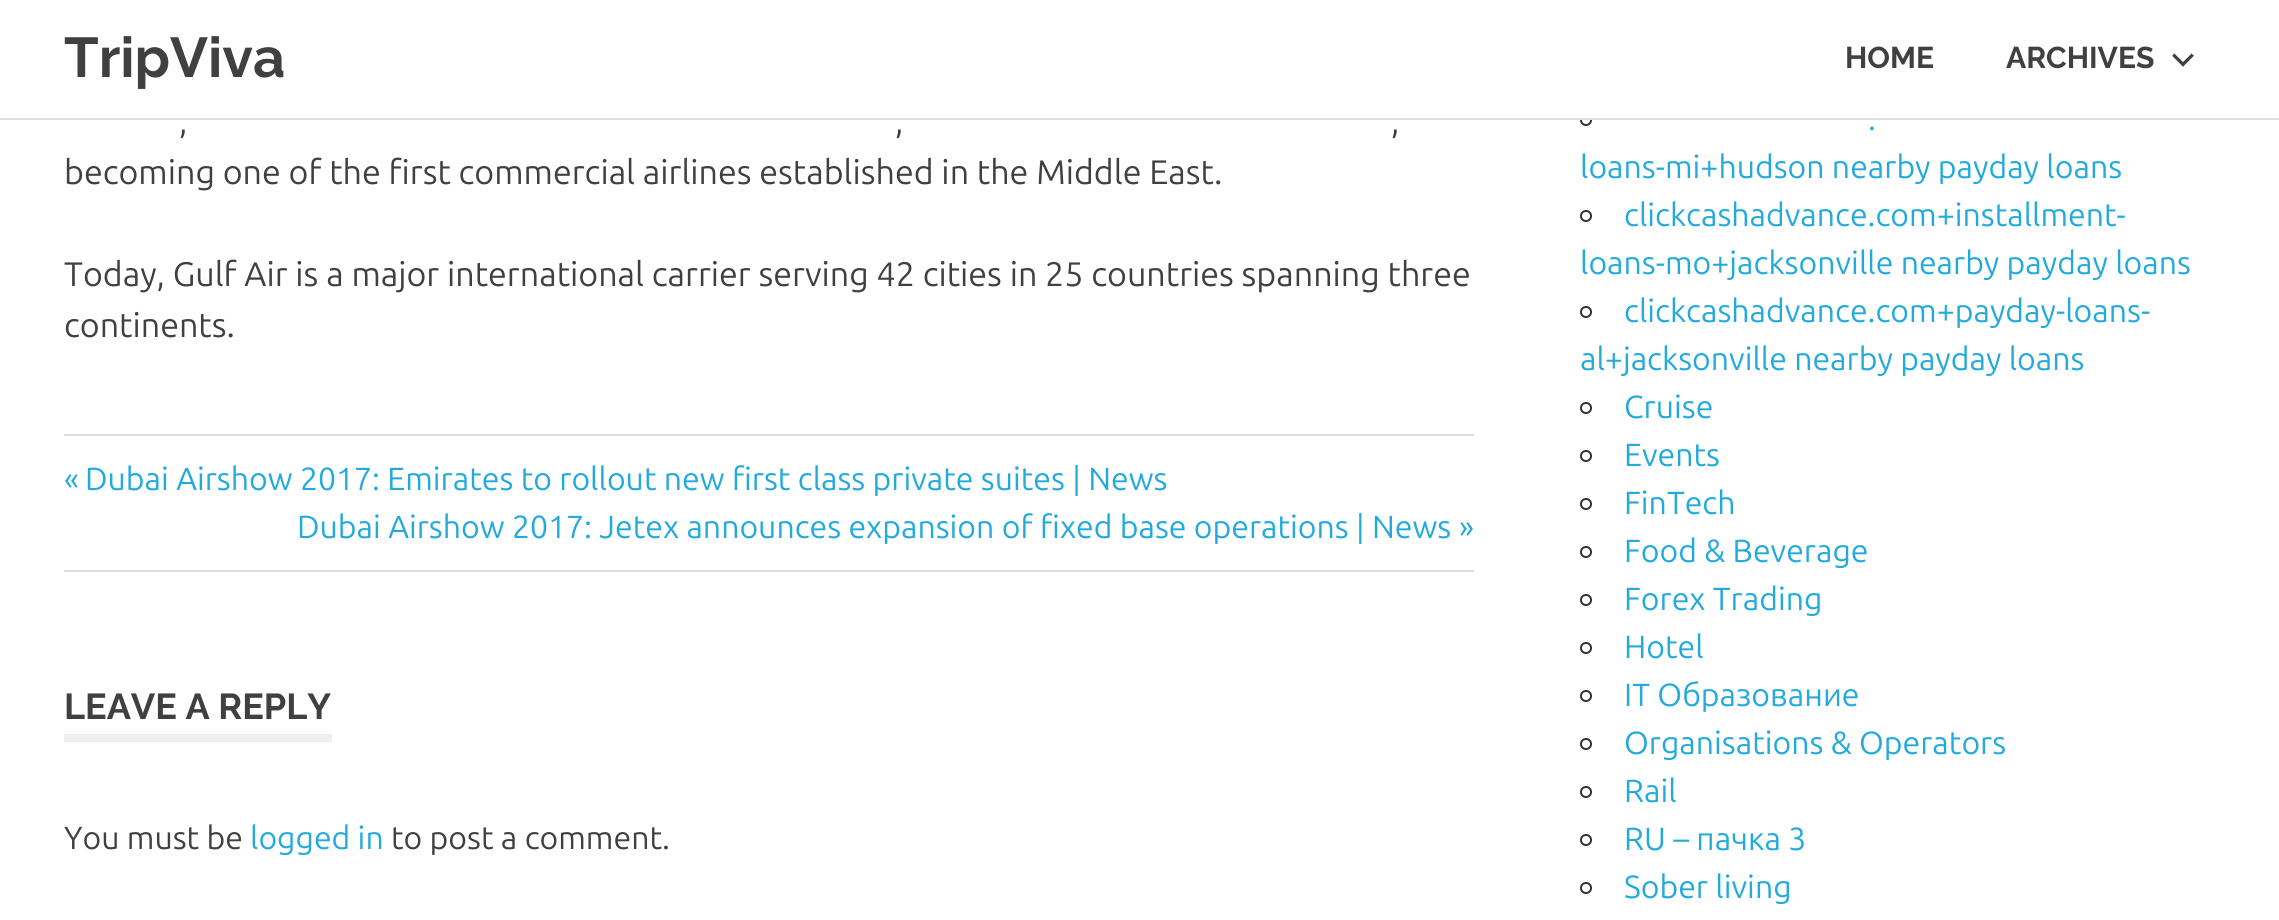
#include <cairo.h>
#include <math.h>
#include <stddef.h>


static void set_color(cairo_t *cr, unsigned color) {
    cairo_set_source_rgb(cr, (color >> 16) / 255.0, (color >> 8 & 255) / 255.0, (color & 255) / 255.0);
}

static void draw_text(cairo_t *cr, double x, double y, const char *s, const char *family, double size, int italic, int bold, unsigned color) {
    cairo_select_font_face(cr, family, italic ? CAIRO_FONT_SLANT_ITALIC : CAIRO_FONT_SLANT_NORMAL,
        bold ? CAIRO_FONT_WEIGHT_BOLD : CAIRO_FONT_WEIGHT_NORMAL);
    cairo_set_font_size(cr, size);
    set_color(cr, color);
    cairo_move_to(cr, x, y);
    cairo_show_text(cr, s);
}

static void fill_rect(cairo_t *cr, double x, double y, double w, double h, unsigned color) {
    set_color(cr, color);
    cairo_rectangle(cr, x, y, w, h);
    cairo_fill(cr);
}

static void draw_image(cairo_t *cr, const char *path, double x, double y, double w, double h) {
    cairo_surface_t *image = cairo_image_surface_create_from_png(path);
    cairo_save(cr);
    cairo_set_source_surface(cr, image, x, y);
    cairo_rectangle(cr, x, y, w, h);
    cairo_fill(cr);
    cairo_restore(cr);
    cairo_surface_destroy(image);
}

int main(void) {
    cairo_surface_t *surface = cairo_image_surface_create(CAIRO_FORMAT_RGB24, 2279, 920);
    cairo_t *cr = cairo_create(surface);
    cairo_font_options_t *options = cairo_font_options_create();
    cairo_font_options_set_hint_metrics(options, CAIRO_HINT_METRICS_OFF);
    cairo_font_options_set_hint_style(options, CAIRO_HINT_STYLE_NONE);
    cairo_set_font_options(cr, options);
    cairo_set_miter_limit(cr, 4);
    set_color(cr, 0xFFFFFF);
    cairo_paint(cr);
    cairo_arc(cr, 1586, 120, 5, 0, 2 * M_PI);
    set_color(cr, 0x333333);
    cairo_stroke(cr);
    fill_rect(cr, 1580, 114, 12, 4, 0xFFFFFF);
    fill_rect(cr, 0, 118, 2279, 2, 0xE0E0E0);
    draw_text(cr, 64, 77, "TripViva", "Raleway", 56, 0, 1, 0x404040);
    draw_text(cr, 1845, 68, "HOME", "Raleway", 30, 0, 1, 0x404040);
    draw_text(cr, 2006, 68, "ARCHIVES", "Raleway", 30, 0, 1, 0x404040);
    draw_image(cr, "assets/img1.png", 2172, 53, 22, 14);
    draw_text(cr, 179, 133, ",", "Ubuntu", 34, 0, 0, 0x404040);
    draw_text(cr, 895, 133, ",", "Ubuntu", 34, 0, 0, 0x404040);
    draw_text(cr, 1391, 133, ",", "Ubuntu", 34, 0, 0, 0x404040);
    draw_text(cr, 64, 184, "becoming one of the first commercial airlines established in the Middle East.", "Ubuntu", 34, 0, 0, 0x404040);
    draw_text(cr, 64, 286, "Today, Gulf Air is a major international carrier serving 42 cities in 25 countries spanning three", "Ubuntu", 34, 0, 0, 0x404040);
    draw_text(cr, 64, 337, "continents.", "Ubuntu", 34, 0, 0, 0x404040);
    fill_rect(cr, 64, 434, 1410, 2, 0xDDDDDD);
    fill_rect(cr, 64, 570, 1410, 2, 0xDDDDDD);
    draw_text(cr, 64, 490, "«", "Ubuntu", 32, 0, 0, 0x22AADD);
    draw_text(cr, 85, 490, "Dubai Airshow 2017: Emirates to rollout new first class private suites | News", "Ubuntu", 32, 0, 0, 0x22AADD);
    draw_text(cr, 297, 538, "Dubai Airshow 2017: Jetex announces expansion of fixed base operations | News", "Ubuntu", 32, 0, 0, 0x22AADD);
    draw_text(cr, 1459, 538, "»", "Ubuntu", 32, 0, 0, 0x22AADD);
    fill_rect(cr, 64, 734, 268, 8, 0xEEEEEE);
    draw_text(cr, 64, 719, "LEAVE A REPLY", "Raleway", 36, 0, 1, 0x404040);
    draw_text(cr, 64, 849, "You must be", "Ubuntu", 32, 0, 0, 0x404040);
    draw_text(cr, 250, 849, "logged in", "Ubuntu", 32, 0, 0, 0x22AADD);
    draw_text(cr, 391, 849, "to post a comment.", "Ubuntu", 32, 0, 0, 0x404040);
    draw_text(cr, 1868, 130, ".", "Ubuntu", 32, 0, 0, 0x22AADD);
    draw_text(cr, 1580, 178, "loans-mi+hudson nearby payday loans", "Ubuntu", 32, 0, 0, 0x22AADD);
    cairo_new_path(cr);
    cairo_arc(cr, 1586, 216, 5, 0, 2 * M_PI);
    set_color(cr, 0x333333);
    cairo_stroke(cr);
    draw_text(cr, 1624, 226, "clickcashadvance.com+installment-", "Ubuntu", 32, 0, 0, 0x22AADD);
    draw_text(cr, 1580, 274, "loans-mo+jacksonville nearby payday loans", "Ubuntu", 32, 0, 0, 0x22AADD);
    cairo_new_path(cr);
    cairo_arc(cr, 1586, 312, 5, 0, 2 * M_PI);
    set_color(cr, 0x333333);
    cairo_stroke(cr);
    draw_text(cr, 1624, 322, "clickcashadvance.com+payday-loans-", "Ubuntu", 32, 0, 0, 0x22AADD);
    draw_text(cr, 1580, 370, "al+jacksonville nearby payday loans", "Ubuntu", 32, 0, 0, 0x22AADD);
    cairo_new_path(cr);
    cairo_arc(cr, 1586, 408, 5, 0, 2 * M_PI);
    set_color(cr, 0x333333);
    cairo_stroke(cr);
    draw_text(cr, 1624, 418, "Cruise", "Ubuntu", 32, 0, 0, 0x22AADD);
    cairo_new_path(cr);
    cairo_arc(cr, 1586, 456, 5, 0, 2 * M_PI);
    set_color(cr, 0x333333);
    cairo_stroke(cr);
    draw_text(cr, 1624, 466, "Events", "Ubuntu", 32, 0, 0, 0x22AADD);
    cairo_new_path(cr);
    cairo_arc(cr, 1586, 504, 5, 0, 2 * M_PI);
    set_color(cr, 0x333333);
    cairo_stroke(cr);
    draw_text(cr, 1624, 514, "FinTech", "Ubuntu", 32, 0, 0, 0x22AADD);
    cairo_new_path(cr);
    cairo_arc(cr, 1586, 552, 5, 0, 2 * M_PI);
    set_color(cr, 0x333333);
    cairo_stroke(cr);
    draw_text(cr, 1624, 562, "Food & Beverage", "Ubuntu", 32, 0, 0, 0x22AADD);
    cairo_new_path(cr);
    cairo_arc(cr, 1586, 600, 5, 0, 2 * M_PI);
    set_color(cr, 0x333333);
    cairo_stroke(cr);
    draw_text(cr, 1624, 610, "Forex Trading", "Ubuntu", 32, 0, 0, 0x22AADD);
    cairo_new_path(cr);
    cairo_arc(cr, 1586, 648, 5, 0, 2 * M_PI);
    set_color(cr, 0x333333);
    cairo_stroke(cr);
    draw_text(cr, 1624, 658, "Hotel", "Ubuntu", 32, 0, 0, 0x22AADD);
    cairo_new_path(cr);
    cairo_arc(cr, 1586, 696, 5, 0, 2 * M_PI);
    set_color(cr, 0x333333);
    cairo_stroke(cr);
    draw_text(cr, 1624, 706, "IT Образование", "Ubuntu", 32, 0, 0, 0x22AADD);
    cairo_new_path(cr);
    cairo_arc(cr, 1586, 744, 5, 0, 2 * M_PI);
    set_color(cr, 0x333333);
    cairo_stroke(cr);
    draw_text(cr, 1624, 754, "Organisations & Operators", "Ubuntu", 32, 0, 0, 0x22AADD);
    cairo_new_path(cr);
    cairo_arc(cr, 1586, 792, 5, 0, 2 * M_PI);
    set_color(cr, 0x333333);
    cairo_stroke(cr);
    draw_text(cr, 1624, 802, "Rail", "Ubuntu", 32, 0, 0, 0x22AADD);
    cairo_new_path(cr);
    cairo_arc(cr, 1586, 840, 5, 0, 2 * M_PI);
    set_color(cr, 0x333333);
    cairo_stroke(cr);
    draw_text(cr, 1624, 850, "RU – пачка 3", "Ubuntu", 32, 0, 0, 0x22AADD);
    cairo_new_path(cr);
    cairo_arc(cr, 1586, 888, 5, 0, 2 * M_PI);
    set_color(cr, 0x333333);
    cairo_stroke(cr);
    draw_text(cr, 1624, 898, "Sober living", "Ubuntu", 32, 0, 0, 0x22AADD);
    cairo_surface_write_to_png(surface, "output.png");
    cairo_font_options_destroy(options);
    cairo_destroy(cr);
    cairo_surface_destroy(surface);
    return 0;
}
